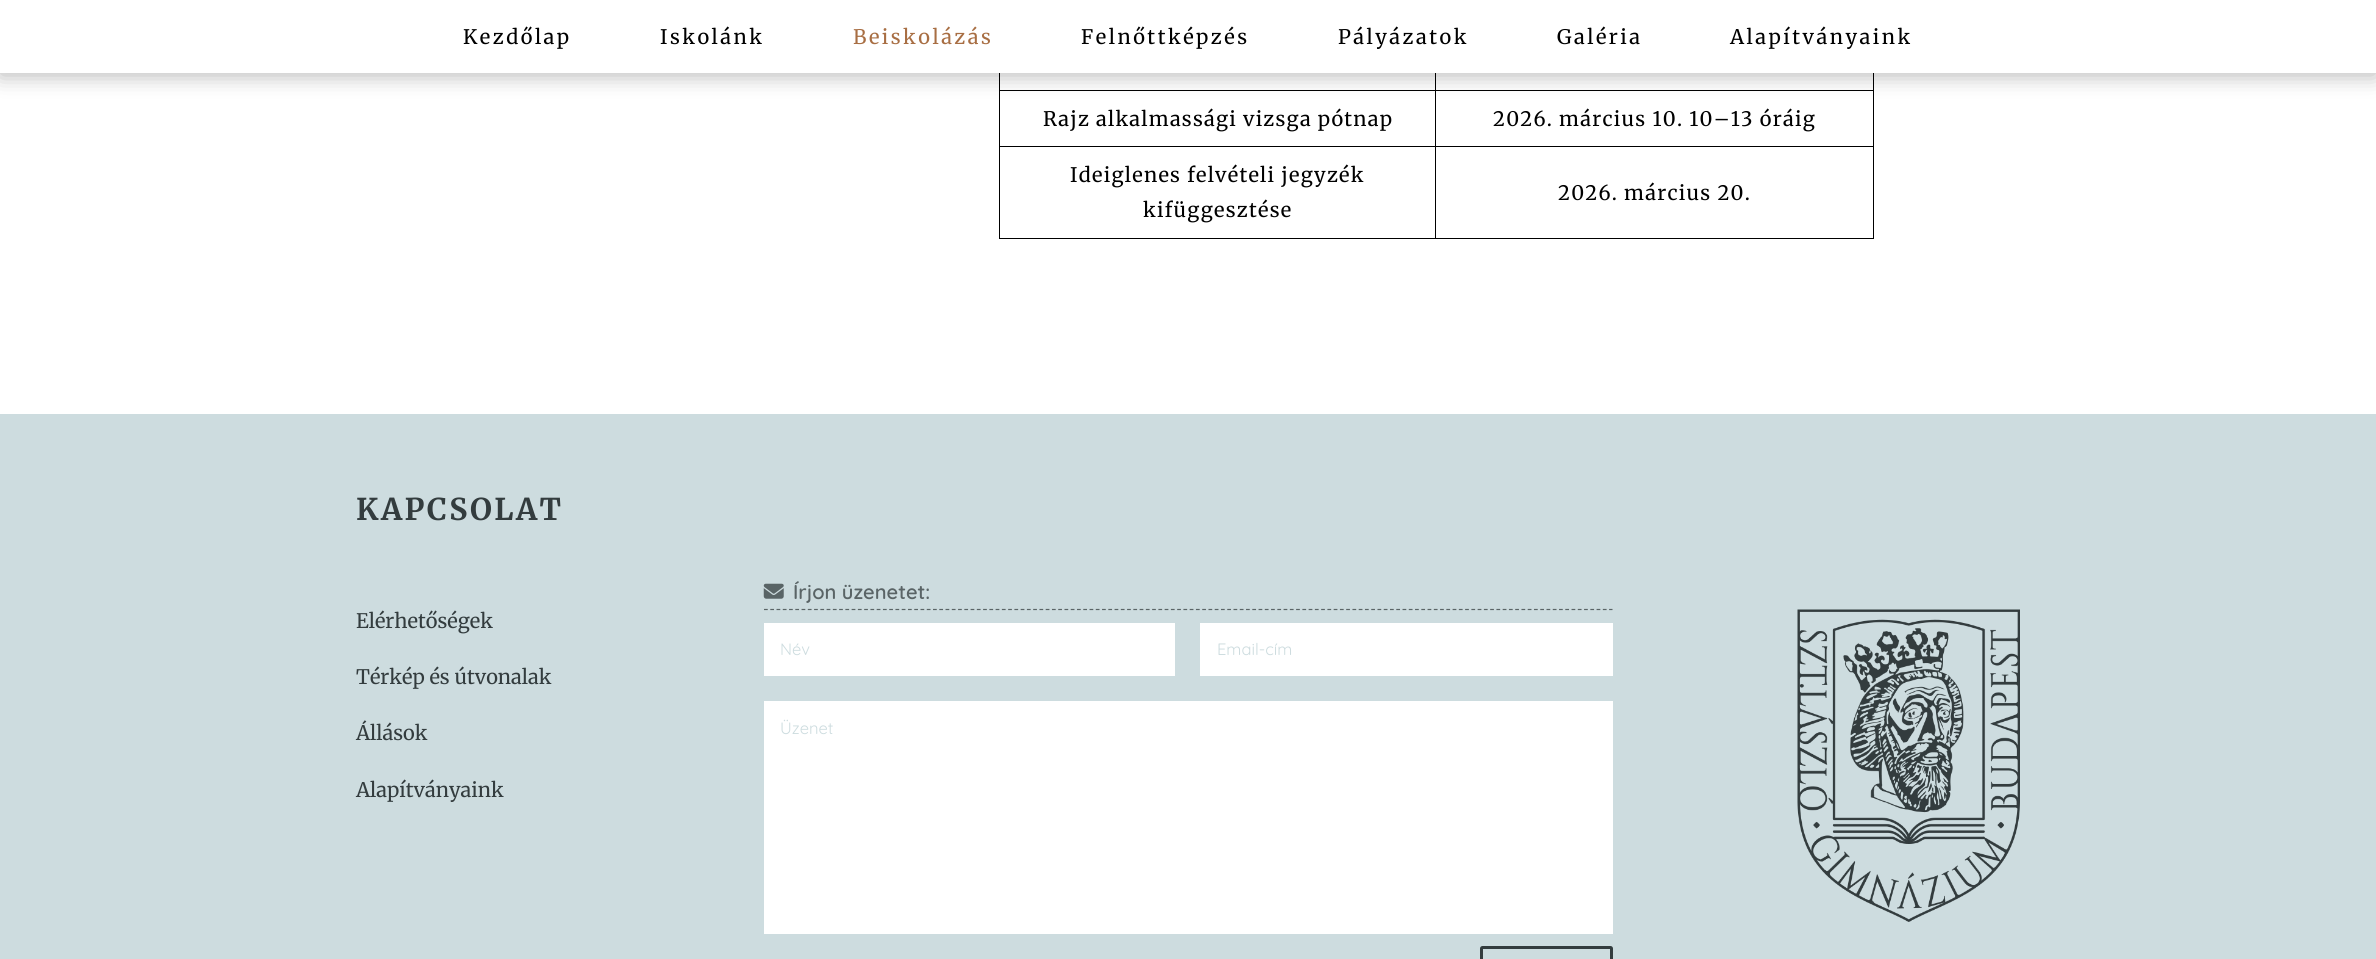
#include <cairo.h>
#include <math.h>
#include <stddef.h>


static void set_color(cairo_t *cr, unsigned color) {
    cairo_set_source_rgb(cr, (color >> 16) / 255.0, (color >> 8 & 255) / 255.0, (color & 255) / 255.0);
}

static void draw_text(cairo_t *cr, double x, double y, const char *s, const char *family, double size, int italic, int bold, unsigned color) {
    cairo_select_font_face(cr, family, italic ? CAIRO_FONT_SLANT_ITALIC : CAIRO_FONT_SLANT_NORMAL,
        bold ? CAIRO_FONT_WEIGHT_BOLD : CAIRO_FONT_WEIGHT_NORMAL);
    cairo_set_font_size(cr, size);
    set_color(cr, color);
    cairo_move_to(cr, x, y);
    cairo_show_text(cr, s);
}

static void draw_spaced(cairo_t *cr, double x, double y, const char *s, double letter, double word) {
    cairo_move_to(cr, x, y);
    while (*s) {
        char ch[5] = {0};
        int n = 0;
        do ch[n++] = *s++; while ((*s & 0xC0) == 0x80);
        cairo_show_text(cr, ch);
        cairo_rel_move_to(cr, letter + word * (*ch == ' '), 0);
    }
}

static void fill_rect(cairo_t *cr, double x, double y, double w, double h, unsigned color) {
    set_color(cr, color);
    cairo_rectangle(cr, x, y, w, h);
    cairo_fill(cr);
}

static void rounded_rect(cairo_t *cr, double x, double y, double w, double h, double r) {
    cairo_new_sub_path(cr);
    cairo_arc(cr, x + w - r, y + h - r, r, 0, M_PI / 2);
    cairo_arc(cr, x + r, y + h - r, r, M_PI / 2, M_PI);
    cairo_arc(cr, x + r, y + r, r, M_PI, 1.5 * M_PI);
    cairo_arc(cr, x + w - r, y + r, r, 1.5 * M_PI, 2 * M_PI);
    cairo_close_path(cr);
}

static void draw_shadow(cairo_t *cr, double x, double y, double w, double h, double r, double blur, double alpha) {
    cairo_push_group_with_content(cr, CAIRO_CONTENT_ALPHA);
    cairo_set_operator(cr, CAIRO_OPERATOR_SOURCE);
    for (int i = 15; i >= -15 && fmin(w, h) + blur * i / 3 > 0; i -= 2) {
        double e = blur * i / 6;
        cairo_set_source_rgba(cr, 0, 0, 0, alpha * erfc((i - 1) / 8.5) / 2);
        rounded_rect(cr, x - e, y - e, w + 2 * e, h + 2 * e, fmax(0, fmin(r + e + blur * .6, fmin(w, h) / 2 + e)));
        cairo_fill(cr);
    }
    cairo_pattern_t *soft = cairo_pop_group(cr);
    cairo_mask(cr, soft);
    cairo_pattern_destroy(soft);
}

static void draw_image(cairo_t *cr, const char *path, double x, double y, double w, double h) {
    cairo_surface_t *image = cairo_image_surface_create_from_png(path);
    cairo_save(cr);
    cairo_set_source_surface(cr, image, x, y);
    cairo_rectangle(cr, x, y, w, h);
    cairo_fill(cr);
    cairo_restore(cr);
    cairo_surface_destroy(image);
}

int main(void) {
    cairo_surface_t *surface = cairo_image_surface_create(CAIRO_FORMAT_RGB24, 2376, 959);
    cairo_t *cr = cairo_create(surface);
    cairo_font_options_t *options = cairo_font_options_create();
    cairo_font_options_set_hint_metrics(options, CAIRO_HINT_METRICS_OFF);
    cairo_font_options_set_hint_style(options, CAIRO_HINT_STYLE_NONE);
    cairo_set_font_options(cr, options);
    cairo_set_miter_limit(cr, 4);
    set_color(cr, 0xFFFFFF);
    cairo_paint(cr);
    fill_rect(cr, 1435, 90, 439, 1, 0x000000);
    fill_rect(cr, 1435, 146, 439, 1, 0x000000);
    fill_rect(cr, 1873, 146, 1, 93, 0x000000);
    fill_rect(cr, 1435, 238, 439, 1, 0x000000);
    fill_rect(cr, 1435, 146, 1, 93, 0x000000);
    fill_rect(cr, 999, 146, 437, 1, 0x000000);
    fill_rect(cr, 1435, 90, 1, 58, 0x000000);
    fill_rect(cr, 999, 90, 437, 1, 0x000000);
    fill_rect(cr, 1435, 73, 1, 18, 0x000000);
    fill_rect(cr, 999, 238, 437, 1, 0x000000);
    fill_rect(cr, 999, 146, 1, 93, 0x000000);
    fill_rect(cr, 999, 73, 1, 75, 0x000000);
    fill_rect(cr, 1873, 73, 1, 75, 0x000000);
    set_color(cr, 0x000000);
    draw_shadow(cr, 0, 3, 2376, 72, 0, 11, 0.3);
    fill_rect(cr, 0, 0, 2376, 73, 0xFFFFFF);
    cairo_select_font_face(cr, "Merriweather", CAIRO_FONT_SLANT_NORMAL, CAIRO_FONT_WEIGHT_NORMAL);
    cairo_set_font_size(cr, 20);
    set_color(cr, 0x000000);
    draw_spaced(cr, 463, 44, "Kezdőlap", 2.5, 0);
    draw_spaced(cr, 660, 44, "Iskolánk", 2.5, 0);
    set_color(cr, 0xA86E43);
    draw_spaced(cr, 853, 44, "Beiskolázás", 2.5, 0);
    set_color(cr, 0x000000);
    draw_spaced(cr, 1081, 44, "Felnőttképzés", 2.5, 0);
    draw_spaced(cr, 1338, 44, "Pályázatok", 2.5, 0);
    draw_spaced(cr, 1557, 44, "Galéria", 2.5, 0);
    draw_spaced(cr, 1730, 44, "Alapítványaink", 2.5, 0);
    draw_spaced(cr, 1043, 126, "Rajz alkalmassági vizsga pótnap", 1.25, 0);
    draw_spaced(cr, 1493, 126, "2026. március 10. 10–13 óráig", 1.25, 0);
    draw_spaced(cr, 1070, 182, "Ideiglenes felvételi jegyzék", 1.25, 0);
    draw_spaced(cr, 1143, 217, "kifüggesztése", 1.25, 0);
    draw_spaced(cr, 1558, 200, "2026. március 20.", 1.25, 0);
    fill_rect(cr, 0, 414, 2376, 545, 0xCDDCDF);
    cairo_select_font_face(cr, "Merriweather", CAIRO_FONT_SLANT_NORMAL, CAIRO_FONT_WEIGHT_BOLD);
    cairo_set_font_size(cr, 30);
    set_color(cr, 0x333C3E);
    draw_spaced(cr, 356, 520, "KAPCSOLAT", 2.5, 0);
    draw_text(cr, 356, 628, "Elérhetőségek", "Merriweather", 20, 0, 0, 0x333C3E);
    draw_text(cr, 356, 684, "Térkép és útvonalak", "Merriweather", 20, 0, 0, 0x333C3E);
    draw_text(cr, 356, 740, "Állások", "Merriweather", 20, 0, 0, 0x333C3E);
    draw_text(cr, 356, 797, "Alapítványaink", "Merriweather", 20, 0, 0, 0x333C3E);
    cairo_new_path(cr);
    cairo_move_to(cr, 764, 609.5);
    cairo_line_to(cr, 1612.5, 609.5);
    set_color(cr, 0x5A6466);
    cairo_set_line_width(cr, 1.2);
    cairo_set_dash(cr, (double[]){3.75, 2.51}, 2, 0);
    cairo_stroke(cr);
    draw_image(cr, "assets/img1.png", 763, 583, 21, 16);
    draw_text(cr, 793, 599, "Írjon üzenetet:", "Quicksand SemiBold", 20, 0, 0, 0x5A6466);
    fill_rect(cr, 764, 623, 411, 53, 0xFFFFFF);
    draw_text(cr, 780, 655, "Név", "Quicksand", 16.5, 0, 0, 0xCDDCDF);
    fill_rect(cr, 1200, 623, 413, 53, 0xFFFFFF);
    draw_text(cr, 1217, 655, "Email-cím", "Quicksand", 16.5, 0, 0, 0xCDDCDF);
    fill_rect(cr, 764, 701, 849, 233, 0xFFFFFF);
    draw_text(cr, 780, 734, "Üzenet", "Quicksand", 16.5, 0, 0, 0xCDDCDF);
    rounded_rect(cr, 1481.5, 947.5, 130, 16, 1);
    set_color(cr, 0x333C3E);
    cairo_set_line_width(cr, 3);
    cairo_set_dash(cr, NULL, 0, 0);
    cairo_stroke(cr);
    draw_image(cr, "assets/img2.png", 1797, 609, 223, 313);
    cairo_surface_write_to_png(surface, "output.png");
    cairo_font_options_destroy(options);
    cairo_destroy(cr);
    cairo_surface_destroy(surface);
    return 0;
}
